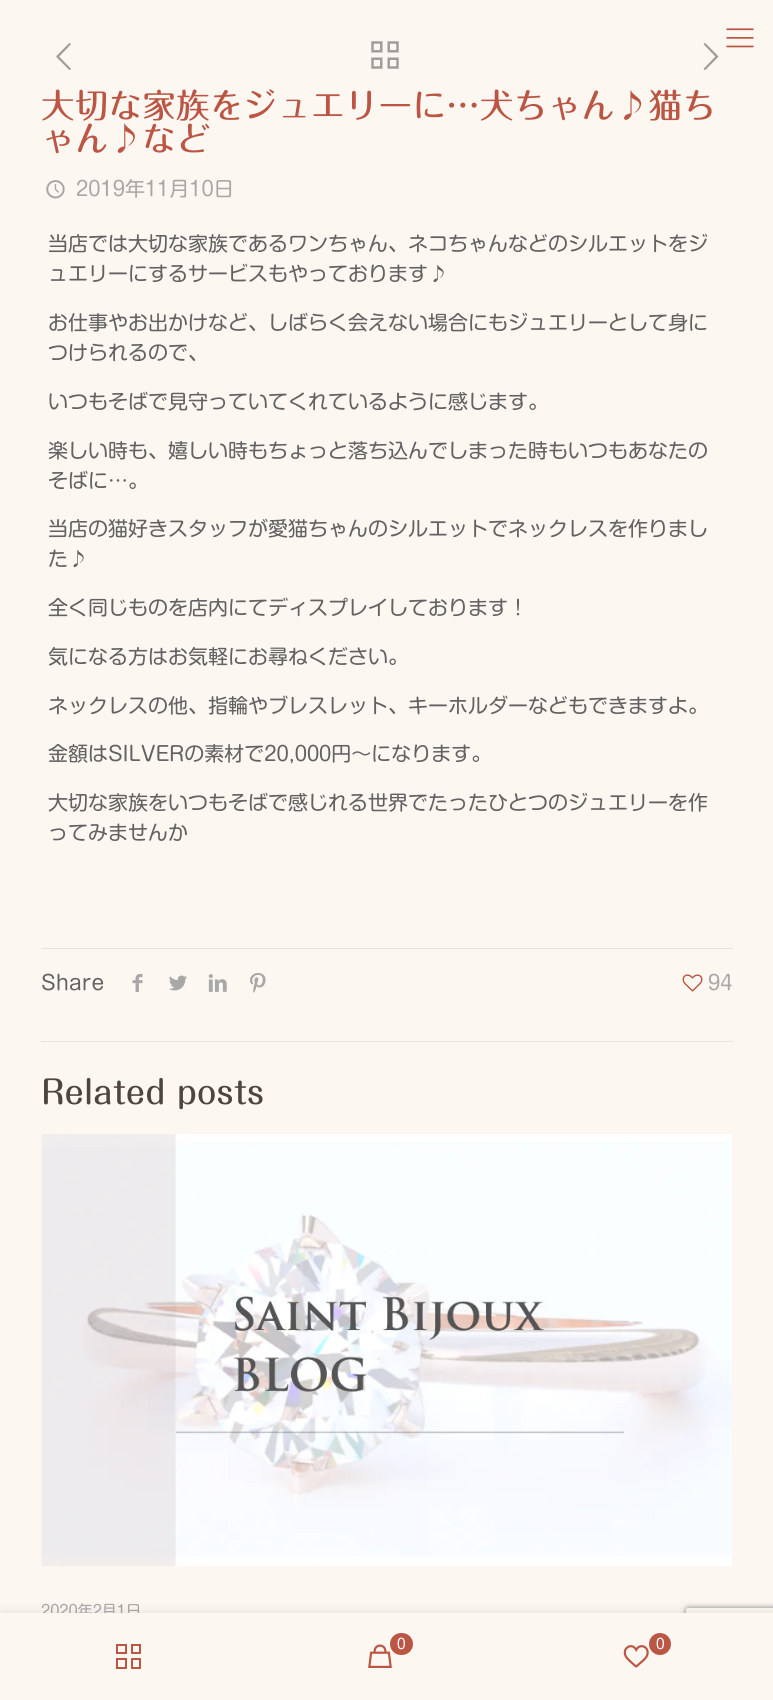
#include <cairo.h>
#include <math.h>
#include <stddef.h>


static void set_color(cairo_t *cr, unsigned color) {
    cairo_set_source_rgb(cr, (color >> 16) / 255.0, (color >> 8 & 255) / 255.0, (color & 255) / 255.0);
}

static void draw_text(cairo_t *cr, double x, double y, const char *s, const char *family, double size, int italic, int bold, unsigned color) {
    cairo_select_font_face(cr, family, italic ? CAIRO_FONT_SLANT_ITALIC : CAIRO_FONT_SLANT_NORMAL,
        bold ? CAIRO_FONT_WEIGHT_BOLD : CAIRO_FONT_WEIGHT_NORMAL);
    cairo_set_font_size(cr, size);
    set_color(cr, color);
    cairo_move_to(cr, x, y);
    cairo_show_text(cr, s);
}

static void fill_rect(cairo_t *cr, double x, double y, double w, double h, unsigned color) {
    set_color(cr, color);
    cairo_rectangle(cr, x, y, w, h);
    cairo_fill(cr);
}

static void rounded_rect(cairo_t *cr, double x, double y, double w, double h, double r) {
    cairo_new_sub_path(cr);
    cairo_arc(cr, x + w - r, y + h - r, r, 0, M_PI / 2);
    cairo_arc(cr, x + r, y + h - r, r, M_PI / 2, M_PI);
    cairo_arc(cr, x + r, y + r, r, M_PI, 1.5 * M_PI);
    cairo_arc(cr, x + w - r, y + r, r, 1.5 * M_PI, 2 * M_PI);
    cairo_close_path(cr);
}

static void draw_shadow(cairo_t *cr, double x, double y, double w, double h, double r, double blur, double alpha) {
    cairo_push_group_with_content(cr, CAIRO_CONTENT_ALPHA);
    cairo_set_operator(cr, CAIRO_OPERATOR_SOURCE);
    for (int i = 15; i >= -15 && fmin(w, h) + blur * i / 3 > 0; i -= 2) {
        double e = blur * i / 6;
        cairo_set_source_rgba(cr, 0, 0, 0, alpha * erfc((i - 1) / 8.5) / 2);
        rounded_rect(cr, x - e, y - e, w + 2 * e, h + 2 * e, fmax(0, fmin(r + e + blur * .6, fmin(w, h) / 2 + e)));
        cairo_fill(cr);
    }
    cairo_pattern_t *soft = cairo_pop_group(cr);
    cairo_mask(cr, soft);
    cairo_pattern_destroy(soft);
}

static void draw_image(cairo_t *cr, const char *path, double x, double y, double w, double h) {
    cairo_surface_t *image = cairo_image_surface_create_from_png(path);
    cairo_save(cr);
    cairo_set_source_surface(cr, image, x, y);
    cairo_rectangle(cr, x, y, w, h);
    cairo_fill(cr);
    cairo_restore(cr);
    cairo_surface_destroy(image);
}

int main(void) {
    cairo_surface_t *surface = cairo_image_surface_create(CAIRO_FORMAT_RGB24, 773, 1700);
    cairo_t *cr = cairo_create(surface);
    cairo_font_options_t *options = cairo_font_options_create();
    cairo_font_options_set_hint_metrics(options, CAIRO_HINT_METRICS_OFF);
    cairo_font_options_set_hint_style(options, CAIRO_HINT_STYLE_NONE);
    cairo_set_font_options(cr, options);
    cairo_set_miter_limit(cr, 4);
    set_color(cr, 0xFDF7F2);
    cairo_paint(cr);
    draw_image(cr, "assets/img1.png", 726, 28, 28, 20);
    draw_image(cr, "assets/img2.png", 56, 43, 15, 27);
    draw_image(cr, "assets/img3.png", 371, 41, 28, 28);
    draw_image(cr, "assets/img4.png", 703, 43, 16, 27);
    draw_text(cr, 41, 118, "大切な家族をジュエリーに…犬ちゃん♪猫ち", "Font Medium", 33.75, 0, 0, 0xBB5644);
    draw_text(cr, 41, 151, "ゃん♪など", "Font Medium", 33.75, 0, 0, 0xBB5644);
    draw_image(cr, "assets/img5.png", 46, 180, 19, 19);
    draw_text(cr, 76, 196, "2019年11月10日", "Font", 20, 0, 0, 0xA8A8A8);
    draw_text(cr, 48, 251, "当店では大切な家族であるワンちゃん、ネコちゃんなどのシルエットをジ", "Font", 20, 0, 0, 0x626262);
    draw_text(cr, 48, 281, "ュエリーにするサービスもやっております♪", "Font", 20, 0, 0, 0x626262);
    draw_text(cr, 48, 330, "お仕事やお出かけなど、しばらく会えない場合にもジュエリーとして身に", "Font", 20, 0, 0, 0x626262);
    draw_text(cr, 48, 360, "つけられるので、", "Font", 20, 0, 0, 0x626262);
    draw_text(cr, 48, 409, "いつもそばで見守っていてくれているように感じます。", "Font", 20, 0, 0, 0x626262);
    draw_text(cr, 48, 458, "楽しい時も、嬉しい時もちょっと落ち込んでしまった時もいつもあなたの", "Font", 20, 0, 0, 0x626262);
    draw_text(cr, 48, 488, "そばに…。", "Font", 20, 0, 0, 0x626262);
    draw_text(cr, 48, 536, "当店の猫好きスタッフが愛猫ちゃんのシルエットでネックレスを作りまし", "Font", 20, 0, 0, 0x626262);
    draw_text(cr, 48, 566, "た♪", "Font", 20, 0, 0, 0x626262);
    draw_text(cr, 48, 615, "全く同じものを店内にてディスプレイしております！", "Font", 20, 0, 0, 0x626262);
    draw_text(cr, 48, 664, "気になる方はお気軽にお尋ねください。", "Font", 20, 0, 0, 0x626262);
    draw_text(cr, 48, 713, "ネックレスの他、指輪やブレスレット、キーホルダーなどもできますよ。", "Font", 20, 0, 0, 0x626262);
    draw_text(cr, 48, 761, "金額はSILVERの素材で20,000円〜になります。", "Font", 20, 0, 0, 0x626262);
    draw_text(cr, 48, 810, "大切な家族をいつもそばで感じれる世界でたったひとつのジュエリーを作", "Font", 20, 0, 0, 0x626262);
    draw_text(cr, 48, 840, "ってみませんか", "Font", 20, 0, 0, 0x626262);
    fill_rect(cr, 41, 948, 692, 1, 0xE9E3DF);
    draw_text(cr, 41, 990, "Share", "Font", 20, 0, 0, 0x626262);
    draw_image(cr, "assets/img6.png", 132, 974, 11, 18);
    draw_image(cr, "assets/img7.png", 169, 975, 18, 16);
    draw_image(cr, "assets/img8.png", 208, 974, 19, 18);
    draw_image(cr, "assets/img9.png", 250, 973, 16, 20);
    draw_image(cr, "assets/img10.png", 682, 974, 21, 18);
    draw_text(cr, 708, 990, "94", "Font", 20, 0, 0, 0xA8A8A8);
    fill_rect(cr, 41, 1041, 692, 1, 0xE9E3DF);
    draw_text(cr, 41, 1104, "Related posts", "Font Medium", 32.5, 0, 0, 0x4E4540);
    draw_image(cr, "assets/img11.png", 41, 1134, 691, 432);
    draw_text(cr, 41, 1616, "2020年2月1日", "Font", 15, 0, 0, 0xA8A8A8);
    set_color(cr, 0x000000);
    draw_shadow(cr, 0, 1613, 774, 87, 0, 6, 0.1);
    cairo_save(cr);
    cairo_set_fill_rule(cr, CAIRO_FILL_RULE_EVEN_ODD);
    cairo_new_path(cr);
    cairo_move_to(cr, 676, 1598);
    cairo_line_to(cr, 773, 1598);
    cairo_line_to(cr, 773, 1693);
    cairo_line_to(cr, 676, 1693);
    cairo_close_path(cr);
    cairo_move_to(cr, 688.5, 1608);
    cairo_line_to(cr, 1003.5, 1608);
    cairo_curve_to(cr, 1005, 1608, 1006, 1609, 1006, 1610.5);
    cairo_line_to(cr, 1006, 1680.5);
    cairo_curve_to(cr, 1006, 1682, 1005, 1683, 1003.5, 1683);
    cairo_line_to(cr, 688.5, 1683);
    cairo_curve_to(cr, 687, 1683, 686, 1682, 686, 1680.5);
    cairo_line_to(cr, 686, 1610.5);
    cairo_curve_to(cr, 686, 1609, 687, 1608, 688.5, 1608);
    cairo_close_path(cr);
    cairo_clip(cr);
    set_color(cr, 0x808080);
    draw_shadow(cr, 686, 1608, 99, 75, 2.5, 3, 1);
    cairo_restore(cr);
    fill_rect(cr, 0, 1613, 773, 87, 0xFDF7F2);
    cairo_rectangle(cr, 132, 1645, 8, 8);
    set_color(cr, 0xBB5644);
    cairo_stroke(cr);
    cairo_rectangle(cr, 117, 1645, 9, 8);
    cairo_stroke(cr);
    cairo_rectangle(cr, 117, 1659, 9, 9);
    cairo_stroke(cr);
    cairo_rectangle(cr, 132, 1659, 8, 9);
    cairo_stroke(cr);
    draw_image(cr, "assets/img12.png", 368, 1644, 24, 24);
    rounded_rect(cr, 390, 1633, 23, 22, 11);
    cairo_fill(cr);
    draw_text(cr, 397, 1649, "0", "Font", 14, 0, 0, 0xFFFFFF);
    set_color(cr, 0xBB5644);
    cairo_new_path(cr);
    cairo_arc(cr, 660, 1644, 11, 0, 2 * M_PI);
    cairo_fill(cr);
    draw_text(cr, 656, 1649, "0", "Font", 14, 0, 0, 0xFFFFFF);
    draw_image(cr, "assets/img13.png", 623, 1645, 26, 23);
    cairo_surface_write_to_png(surface, "output.png");
    cairo_font_options_destroy(options);
    cairo_destroy(cr);
    cairo_surface_destroy(surface);
    return 0;
}
